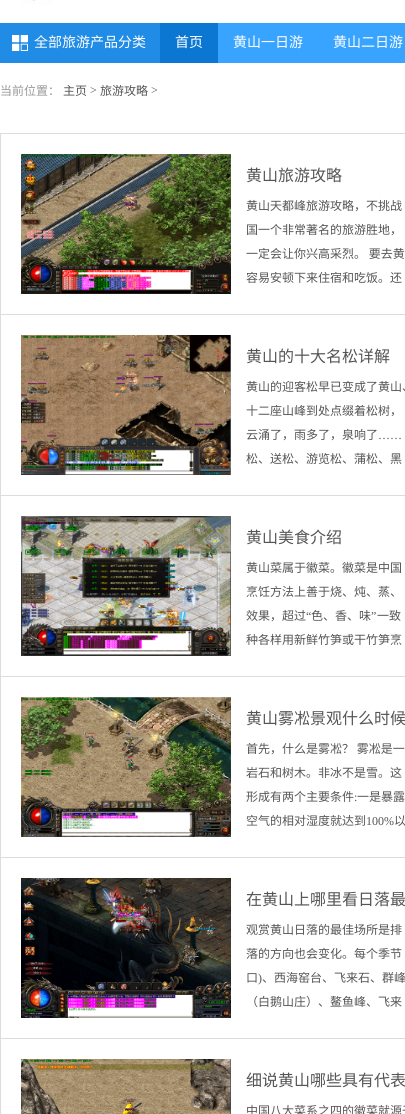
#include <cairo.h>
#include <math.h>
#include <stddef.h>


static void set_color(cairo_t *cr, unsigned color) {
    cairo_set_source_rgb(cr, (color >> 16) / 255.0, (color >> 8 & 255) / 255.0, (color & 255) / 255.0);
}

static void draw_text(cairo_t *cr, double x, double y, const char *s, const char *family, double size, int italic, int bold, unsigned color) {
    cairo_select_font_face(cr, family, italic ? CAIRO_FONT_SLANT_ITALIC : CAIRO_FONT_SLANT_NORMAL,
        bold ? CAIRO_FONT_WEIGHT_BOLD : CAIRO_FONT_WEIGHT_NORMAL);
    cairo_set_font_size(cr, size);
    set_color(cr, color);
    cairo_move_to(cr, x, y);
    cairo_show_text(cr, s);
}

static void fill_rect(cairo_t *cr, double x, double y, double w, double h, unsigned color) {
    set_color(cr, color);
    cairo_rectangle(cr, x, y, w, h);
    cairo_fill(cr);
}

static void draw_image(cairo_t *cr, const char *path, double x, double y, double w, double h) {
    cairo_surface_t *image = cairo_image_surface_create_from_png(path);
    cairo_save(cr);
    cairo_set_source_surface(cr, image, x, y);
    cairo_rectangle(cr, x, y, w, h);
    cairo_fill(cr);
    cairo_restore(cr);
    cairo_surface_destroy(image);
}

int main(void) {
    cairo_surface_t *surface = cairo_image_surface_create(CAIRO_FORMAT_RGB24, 405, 1114);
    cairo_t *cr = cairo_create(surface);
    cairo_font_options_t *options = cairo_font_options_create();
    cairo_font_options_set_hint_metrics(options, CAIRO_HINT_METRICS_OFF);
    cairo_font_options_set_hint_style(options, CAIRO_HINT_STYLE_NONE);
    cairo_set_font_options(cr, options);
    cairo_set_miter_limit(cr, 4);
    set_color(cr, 0xFFFFFF);
    cairo_paint(cr);
    draw_image(cr, "assets/img1.png", 21, 0, 32, 5);
    fill_rect(cr, 218, 23, 187, 40, 0x38A4FF);
    fill_rect(cr, 0, 23, 160, 40, 0x218CE6);
    draw_image(cr, "assets/img2.png", 12, 35, 16, 16);
    draw_text(cr, 34, 47, "全部旅游产品分类", "Noto Sans CJK SC", 14, 0, 0, 0xFFFFFF);
    fill_rect(cr, 160, 23, 58, 40, 0x0B77D2);
    draw_text(cr, 175, 47, "首页", "Noto Sans CJK SC", 14, 0, 0, 0xFFFFFF);
    draw_text(cr, 233, 47, "黄山一日游", "Noto Sans CJK SC", 14, 0, 0, 0xFFFFFF);
    draw_text(cr, 333, 47, "黄山二日游", "Noto Sans CJK SC", 14, 0, 0, 0xFFFFFF);
    draw_text(cr, 0, 95, "当前位置：", "Noto Sans CJK SC", 12, 0, 0, 0x999999);
    draw_text(cr, 63, 95, "主页", "Noto Sans CJK SC", 12, 0, 0, 0x555555);
    draw_text(cr, 90, 94, ">", "Liberation Serif", 12, 0, 0, 0x555555);
    draw_text(cr, 100, 95, "旅游攻略", "Noto Sans CJK SC", 12, 0, 0, 0x555555);
    draw_text(cr, 151, 94, ">", "Liberation Serif", 12, 0, 0, 0x555555);
    cairo_rectangle(cr, 0.5, 133.5, 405, 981);
    set_color(cr, 0xDDDDDD);
    cairo_set_line_width(cr, 1);
    cairo_stroke(cr);
    fill_rect(cr, 1, 314, 404, 1, 0xDDDDDD);
    draw_image(cr, "assets/img3.png", 21, 154, 210, 140);
    draw_text(cr, 246, 181, "黄山旅游攻略", "Noto Sans CJK SC", 16, 0, 0, 0x555555);
    draw_text(cr, 246, 210, "黄山天都峰旅游攻略，不挑战", "Noto Sans CJK SC", 12, 0, 0, 0x555555);
    draw_text(cr, 246, 234, "国一个非常著名的旅游胜地，", "Noto Sans CJK SC", 12, 0, 0, 0x555555);
    draw_text(cr, 246, 258, "一定会让你兴高采烈。 要去黄", "Noto Sans CJK SC", 12, 0, 0, 0x555555);
    draw_text(cr, 246, 282, "容易安顿下来住宿和吃饭。还", "Noto Sans CJK SC", 12, 0, 0, 0x555555);
    fill_rect(cr, 1, 495, 404, 1, 0xDDDDDD);
    draw_image(cr, "assets/img4.png", 21, 335, 210, 140);
    draw_text(cr, 246, 362, "黄山的十大名松详解", "Noto Sans CJK SC", 16, 0, 0, 0x555555);
    draw_text(cr, 246, 391, "黄山的迎客松早已变成了黄山、", "Noto Sans CJK SC", 12, 0, 0, 0x555555);
    draw_text(cr, 246, 415, "十二座山峰到处点缀着松树，", "Noto Sans CJK SC", 12, 0, 0, 0x555555);
    draw_text(cr, 246, 439, "云涌了，雨多了，泉响了", "Noto Sans CJK SC", 12, 0, 0, 0x555555);
    draw_text(cr, 378, 439, "……", "Liberation Serif", 12, 0, 0, 0x555555);
    draw_text(cr, 246, 463, "松、送松、游览松、蒲松、黑", "Noto Sans CJK SC", 12, 0, 0, 0x555555);
    fill_rect(cr, 1, 676, 404, 1, 0xDDDDDD);
    draw_image(cr, "assets/img5.png", 21, 516, 210, 140);
    draw_text(cr, 246, 543, "黄山美食介绍", "Noto Sans CJK SC", 16, 0, 0, 0x555555);
    draw_text(cr, 246, 572, "黄山菜属于徽菜。徽菜是中国", "Noto Sans CJK SC", 12, 0, 0, 0x555555);
    draw_text(cr, 246, 596, "烹饪方法上善于烧、炖、蒸、", "Noto Sans CJK SC", 12, 0, 0, 0x555555);
    draw_text(cr, 246, 620, "效果，超过", "Noto Sans CJK SC", 12, 0, 0, 0x555555);
    draw_text(cr, 306, 620, "“", "Liberation Serif", 12, 0, 0, 0x555555);
    draw_text(cr, 311, 620, "色、香、味", "Noto Sans CJK SC", 12, 0, 0, 0x555555);
    draw_text(cr, 371, 620, "”", "Liberation Serif", 12, 0, 0, 0x555555);
    draw_text(cr, 377, 620, "一致", "Noto Sans CJK SC", 12, 0, 0, 0x555555);
    draw_text(cr, 246, 644, "种各样用新鲜竹笋或干竹笋烹", "Noto Sans CJK SC", 12, 0, 0, 0x555555);
    fill_rect(cr, 1, 857, 404, 1, 0xDDDDDD);
    draw_image(cr, "assets/img6.png", 21, 697, 210, 140);
    draw_text(cr, 246, 724, "黄山雾凇景观什么时候", "Noto Sans CJK SC", 16, 0, 0, 0x555555);
    draw_text(cr, 246, 753, "首先，什么是雾凇？ 雾凇是一", "Noto Sans CJK SC", 12, 0, 0, 0x555555);
    draw_text(cr, 246, 777, "岩石和树木。非冰不是雪。这", "Noto Sans CJK SC", 12, 0, 0, 0x555555);
    draw_text(cr, 246, 801, "形成有两个主要条件", "Noto Sans CJK SC", 12, 0, 0, 0x555555);
    draw_text(cr, 354, 801, ":", "Liberation Serif", 12, 0, 0, 0x555555);
    draw_text(cr, 357, 801, "一是暴露", "Noto Sans CJK SC", 12, 0, 0, 0x555555);
    draw_text(cr, 246, 825, "空气的相对湿度就达到", "Noto Sans CJK SC", 12, 0, 0, 0x555555);
    draw_text(cr, 366, 825, "100%", "Liberation Serif", 12, 0, 0, 0x555555);
    draw_text(cr, 394, 825, "以", "Noto Sans CJK SC", 12, 0, 0, 0x555555);
    fill_rect(cr, 1, 1038, 404, 1, 0xDDDDDD);
    draw_image(cr, "assets/img7.png", 21, 878, 210, 140);
    draw_text(cr, 246, 905, "在黄山上哪里看日落最", "Noto Sans CJK SC", 16, 0, 0, 0x555555);
    draw_text(cr, 246, 934, "观赏黄山日落的最佳场所是排", "Noto Sans CJK SC", 12, 0, 0, 0x555555);
    draw_text(cr, 246, 958, "落的方向也会变化。每个季节", "Noto Sans CJK SC", 12, 0, 0, 0x555555);
    draw_text(cr, 246, 982, "口", "Noto Sans CJK SC", 12, 0, 0, 0x555555);
    draw_text(cr, 258, 982, ")", "Liberation Serif", 12, 0, 0, 0x555555);
    draw_text(cr, 262, 982, "、西海窑台、飞来石、群峰", "Noto Sans CJK SC", 12, 0, 0, 0x555555);
    draw_text(cr, 246, 1006, "（白鹅山庄）、鳌鱼峰、飞来", "Noto Sans CJK SC", 12, 0, 0, 0x555555);
    draw_image(cr, "assets/img8.png", 21, 1059, 210, 55);
    draw_text(cr, 246, 1086, "细说黄山哪些具有代表", "Noto Sans CJK SC", 16, 0, 0, 0x555555);
    draw_text(cr, 246, 1115, "中国八大菜系之四的徽菜就源于", "Noto Sans CJK SC", 12, 0, 0, 0x555555);
    cairo_surface_write_to_png(surface, "output.png");
    cairo_font_options_destroy(options);
    cairo_destroy(cr);
    cairo_surface_destroy(surface);
    return 0;
}
